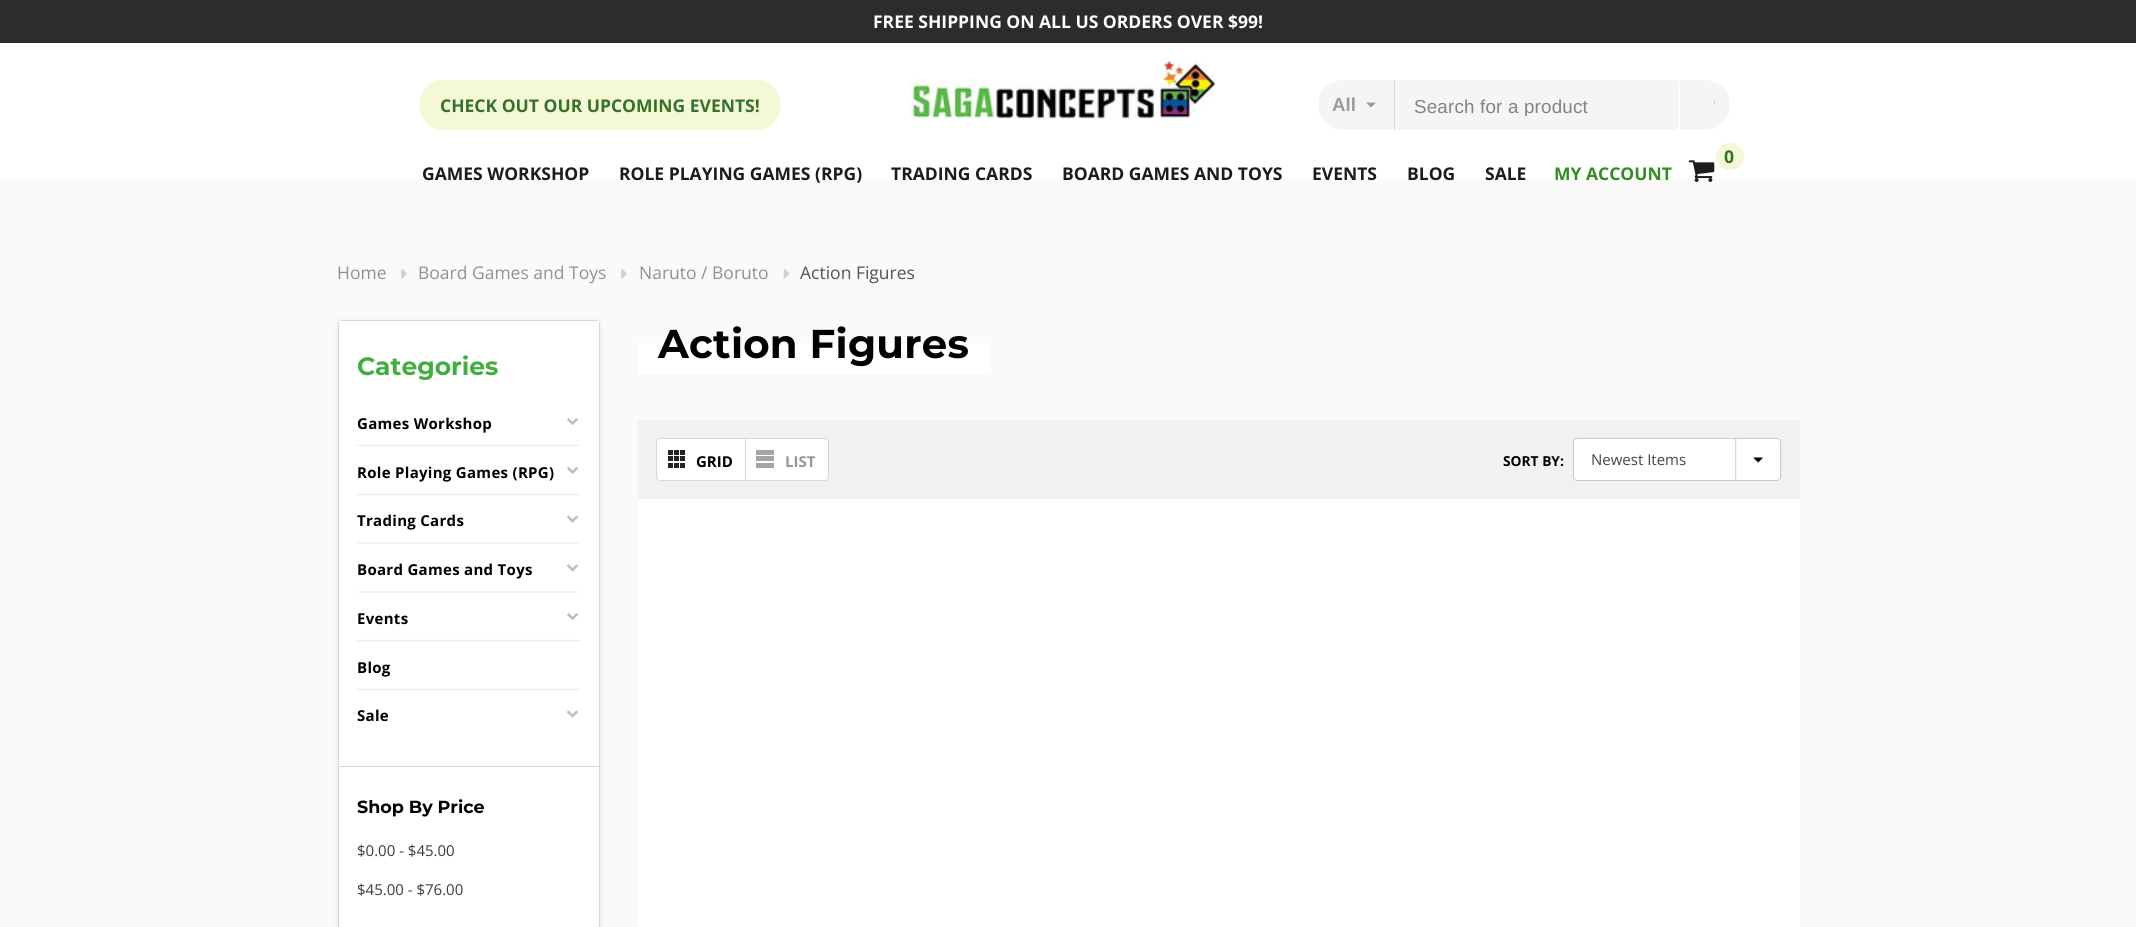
#include <cairo.h>
#include <math.h>
#include <stddef.h>


static void set_color(cairo_t *cr, unsigned color) {
    cairo_set_source_rgb(cr, (color >> 16) / 255.0, (color >> 8 & 255) / 255.0, (color & 255) / 255.0);
}

static void draw_text(cairo_t *cr, double x, double y, const char *s, const char *family, double size, int italic, int bold, unsigned color) {
    cairo_select_font_face(cr, family, italic ? CAIRO_FONT_SLANT_ITALIC : CAIRO_FONT_SLANT_NORMAL,
        bold ? CAIRO_FONT_WEIGHT_BOLD : CAIRO_FONT_WEIGHT_NORMAL);
    cairo_set_font_size(cr, size);
    set_color(cr, color);
    cairo_move_to(cr, x, y);
    cairo_show_text(cr, s);
}

static void draw_spaced(cairo_t *cr, double x, double y, const char *s, double letter, double word) {
    cairo_move_to(cr, x, y);
    while (*s) {
        char ch[5] = {0};
        int n = 0;
        do ch[n++] = *s++; while ((*s & 0xC0) == 0x80);
        cairo_show_text(cr, ch);
        cairo_rel_move_to(cr, letter + word * (*ch == ' '), 0);
    }
}

static void fill_rect(cairo_t *cr, double x, double y, double w, double h, unsigned color) {
    set_color(cr, color);
    cairo_rectangle(cr, x, y, w, h);
    cairo_fill(cr);
}

static void rounded_rect(cairo_t *cr, double x, double y, double w, double h, double r) {
    cairo_new_sub_path(cr);
    cairo_arc(cr, x + w - r, y + h - r, r, 0, M_PI / 2);
    cairo_arc(cr, x + r, y + h - r, r, M_PI / 2, M_PI);
    cairo_arc(cr, x + r, y + r, r, M_PI, 1.5 * M_PI);
    cairo_arc(cr, x + w - r, y + r, r, 1.5 * M_PI, 2 * M_PI);
    cairo_close_path(cr);
}

static void draw_shadow(cairo_t *cr, double x, double y, double w, double h, double r, double blur, double alpha) {
    cairo_push_group_with_content(cr, CAIRO_CONTENT_ALPHA);
    cairo_set_operator(cr, CAIRO_OPERATOR_SOURCE);
    for (int i = 15; i >= -15 && fmin(w, h) + blur * i / 3 > 0; i -= 2) {
        double e = blur * i / 6;
        cairo_set_source_rgba(cr, 0, 0, 0, alpha * erfc((i - 1) / 8.5) / 2);
        rounded_rect(cr, x - e, y - e, w + 2 * e, h + 2 * e, fmax(0, fmin(r + e + blur * .6, fmin(w, h) / 2 + e)));
        cairo_fill(cr);
    }
    cairo_pattern_t *soft = cairo_pop_group(cr);
    cairo_mask(cr, soft);
    cairo_pattern_destroy(soft);
}

static void draw_image(cairo_t *cr, const char *path, double x, double y, double w, double h) {
    cairo_surface_t *image = cairo_image_surface_create_from_png(path);
    cairo_save(cr);
    cairo_set_source_surface(cr, image, x, y);
    cairo_rectangle(cr, x, y, w, h);
    cairo_fill(cr);
    cairo_restore(cr);
    cairo_surface_destroy(image);
}

int main(void) {
    cairo_surface_t *surface = cairo_image_surface_create(CAIRO_FORMAT_RGB24, 2136, 927);
    cairo_t *cr = cairo_create(surface);
    cairo_font_options_t *options = cairo_font_options_create();
    cairo_font_options_set_hint_metrics(options, CAIRO_HINT_METRICS_OFF);
    cairo_font_options_set_hint_style(options, CAIRO_HINT_STYLE_NONE);
    cairo_set_font_options(cr, options);
    cairo_set_miter_limit(cr, 4);
    set_color(cr, 0xFAFAFA);
    cairo_paint(cr);
    fill_rect(cr, 0, 0, 2136, 43, 0x2C2C2C);
    draw_text(cr, 873, 28, "FREE SHIPPING ON ALL US ORDERS OVER $99!", "Open Sans", 17.5, 0, 1, 0xFFFFFF);
    fill_rect(cr, 0, 43, 2136, 136, 0xFFFFFF);
    set_color(cr, 0xF5F8D6);
    rounded_rect(cr, 419, 80, 362, 50, 25);
    cairo_fill(cr);
    draw_text(cr, 440, 112, "CHECK OUT OUR UPCOMING EVENTS!", "Open Sans", 17.5, 0, 1, 0x347129);
    draw_image(cr, "assets/img1.png", 910, 60, 306, 59);
    set_color(cr, 0xF5F5F5);
    cairo_new_path(cr);
    cairo_move_to(cr, 1343, 80);
    cairo_line_to(cr, 1395, 80);
    cairo_line_to(cr, 1395, 130);
    cairo_line_to(cr, 1343, 130);
    cairo_curve_to(cr, 1329, 130, 1318, 119, 1318, 105);
    cairo_curve_to(cr, 1318, 91, 1329, 80, 1343, 80);
    cairo_close_path(cr);
    cairo_fill(cr);
    fill_rect(cr, 1394, 80, 1, 50, 0xD9D9D9);
    draw_text(cr, 1332, 111, "All", "Arimo", 18.75, 0, 1, 0x989C9E);
    cairo_new_path(cr);
    cairo_move_to(cr, 1366, 102.5);
    cairo_line_to(cr, 1376, 102.5);
    cairo_line_to(cr, 1371, 107.5);
    cairo_close_path(cr);
    cairo_fill(cr);
    set_color(cr, 0xF5F5F5);
    cairo_new_path(cr);
    cairo_move_to(cr, 1395, 80);
    cairo_line_to(cr, 1674, 80);
    cairo_curve_to(cr, 1677, 80, 1679, 82, 1679, 85);
    cairo_line_to(cr, 1679, 125);
    cairo_curve_to(cr, 1679, 128, 1677, 130, 1674, 130);
    cairo_line_to(cr, 1395, 130);
    cairo_close_path(cr);
    cairo_fill(cr);
    cairo_save(cr);
    cairo_rectangle(cr, 1414, 95, 246, 21);
    cairo_clip(cr);
    cairo_select_font_face(cr, "Arimo", CAIRO_FONT_SLANT_NORMAL, CAIRO_FONT_WEIGHT_NORMAL);
    set_color(cr, 0x7E8488);
    draw_spaced(cr, 1414, 113, "Search for a product", 0.2, 0);
    cairo_restore(cr);
    cairo_new_path(cr);
    cairo_move_to(cr, 1680, 80);
    cairo_line_to(cr, 1705, 80);
    cairo_curve_to(cr, 1719, 80, 1730, 91, 1730, 105);
    cairo_curve_to(cr, 1730, 119, 1719, 130, 1705, 130);
    cairo_line_to(cr, 1680, 130);
    cairo_close_path(cr);
    cairo_fill(cr);
    draw_image(cr, "assets/img2.png", 1714, 100, 1, 5);
    draw_text(cr, 422, 180, "GAMES WORKSHOP", "Open Sans", 17.5, 0, 1, 0x1C1C1C);
    draw_text(cr, 619, 180, "ROLE PLAYING GAMES (RPG)", "Open Sans", 17.5, 0, 1, 0x1C1C1C);
    draw_text(cr, 891, 180, "TRADING CARDS", "Open Sans", 17.5, 0, 1, 0x1C1C1C);
    draw_text(cr, 1062, 180, "BOARD GAMES AND TOYS", "Open Sans", 17.5, 0, 1, 0x1C1C1C);
    draw_text(cr, 1312, 180, "EVENTS", "Open Sans", 17.5, 0, 1, 0x1C1C1C);
    draw_text(cr, 1407, 180, "BLOG", "Open Sans", 17.5, 0, 1, 0x1C1C1C);
    draw_text(cr, 1485, 180, "SALE", "Open Sans", 17.5, 0, 1, 0x1C1C1C);
    set_color(cr, 0xF5F8D6);
    rounded_rect(cr, 1716, 143, 28, 27, 13.5);
    cairo_fill(cr);
    draw_text(cr, 1724, 163, "0", "Open Sans", 17.5, 0, 1, 0x347129);
    draw_image(cr, "assets/img3.png", 1688, 160, 27, 22);
    draw_text(cr, 1554, 180, "MY ACCOUNT", "Open Sans", 17.5, 0, 1, 0x338D22);
    draw_text(cr, 337, 279, "Home", "Open Sans", 17.5, 0, 0, 0x8D9294);
    draw_image(cr, "assets/img4.png", 401, 268, 6, 11);
    draw_text(cr, 418, 279, "Board Games and Toys", "Open Sans", 17.5, 0, 0, 0x8D9294);
    draw_image(cr, "assets/img4.png", 621, 268, 6, 11);
    draw_text(cr, 639, 279, "Naruto / Boruto", "Open Sans", 17.5, 0, 0, 0x8D9294);
    draw_image(cr, "assets/img5.png", 783, 268, 7, 11);
    draw_text(cr, 800, 279, "Action Figures", "Open Sans", 17.5, 0, 0, 0x4B5459);
    set_color(cr, 0x000000);
    draw_shadow(cr, 338, 321, 262, 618, 4, 2.5, 0.1);
    rounded_rect(cr, 338.5, 320.5, 261, 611, 3.5);
    set_color(cr, 0xD7D7D7);
    cairo_set_line_width(cr, 1);
    cairo_stroke(cr);
    fill_rect(cr, 339, 321, 260, 606, 0xFFFFFF);
    fill_rect(cr, 339, 766, 260, 1, 0xD7D7D7);
    draw_text(cr, 357, 375, "Categories", "Montserrat", 25, 0, 1, 0x41AF3D);
    cairo_select_font_face(cr, "Open Sans", CAIRO_FONT_SLANT_NORMAL, CAIRO_FONT_WEIGHT_BOLD);
    cairo_set_font_size(cr, 15);
    set_color(cr, 0x000000);
    draw_spaced(cr, 357, 429, "Games Workshop", 0.3, 0);
    draw_image(cr, "assets/img6.png", 567, 418, 11, 8);
    cairo_new_path(cr);
    cairo_move_to(cr, 357.5, 445.5);
    cairo_line_to(cr, 580, 445.5);
    set_color(cr, 0xD7D7D7);
    cairo_set_line_width(cr, 1.2);
    cairo_set_dash(cr, (double[]){1.25, 1.25}, 2, 0);
    cairo_stroke(cr);
    set_color(cr, 0x000000);
    draw_spaced(cr, 357, 478, "Role Playing Games (RPG)", 0.3, 0);
    draw_image(cr, "assets/img7.png", 567, 466, 11, 8);
    cairo_new_path(cr);
    cairo_move_to(cr, 357.5, 494.5);
    cairo_line_to(cr, 580, 494.5);
    set_color(cr, 0xD7D7D7);
    cairo_stroke(cr);
    set_color(cr, 0x000000);
    draw_spaced(cr, 357, 526, "Trading Cards", 0.3, 0);
    draw_image(cr, "assets/img8.png", 567, 515, 11, 8);
    cairo_new_path(cr);
    cairo_move_to(cr, 357.5, 543);
    cairo_line_to(cr, 580, 543);
    set_color(cr, 0xD7D7D7);
    cairo_stroke(cr);
    set_color(cr, 0x000000);
    draw_spaced(cr, 357, 575, "Board Games and Toys", 0.3, 0);
    draw_image(cr, "assets/img9.png", 567, 564, 11, 8);
    cairo_new_path(cr);
    cairo_move_to(cr, 357.5, 592);
    cairo_line_to(cr, 580, 592);
    set_color(cr, 0xD7D7D7);
    cairo_stroke(cr);
    set_color(cr, 0x000000);
    draw_spaced(cr, 357, 624, "Events", 0.3, 0);
    draw_image(cr, "assets/img6.png", 567, 613, 11, 8);
    cairo_new_path(cr);
    cairo_move_to(cr, 357.5, 640.5);
    cairo_line_to(cr, 580, 640.5);
    set_color(cr, 0xD7D7D7);
    cairo_stroke(cr);
    set_color(cr, 0x000000);
    draw_spaced(cr, 357, 673, "Blog", 0.3, 0);
    cairo_new_path(cr);
    cairo_move_to(cr, 357.5, 689.5);
    cairo_line_to(cr, 580, 689.5);
    set_color(cr, 0xD7D7D7);
    cairo_stroke(cr);
    set_color(cr, 0x000000);
    draw_spaced(cr, 357, 721, "Sale", 0.3, 0);
    draw_image(cr, "assets/img8.png", 567, 710, 11, 8);
    draw_text(cr, 357, 813, "Shop By Price", "Montserrat", 17.5, 0, 1, 0x000000);
    draw_text(cr, 357, 856, "$0.00 - $45.00", "Open Sans", 15, 0, 0, 0x363E42);
    draw_text(cr, 357, 895, "$45.00 - $76.00", "Open Sans", 15, 0, 0, 0x363E42);
    fill_rect(cr, 638, 343, 353, 31, 0xFFFFFF);
    cairo_select_font_face(cr, "Montserrat", CAIRO_FONT_SLANT_NORMAL, CAIRO_FONT_WEIGHT_BOLD);
    cairo_set_font_size(cr, 40.25);
    set_color(cr, 0x000000);
    draw_spaced(cr, 658, 358, "Action Figures", 0.25, 0);
    fill_rect(cr, 638, 420, 1162, 79, 0xF1F1F1);
    set_color(cr, 0xFFFFFF);
    rounded_rect(cr, 656.5, 438.5, 172, 42, 3.5);
    cairo_fill_preserve(cr);
    set_color(cr, 0xD7D7D7);
    cairo_set_line_width(cr, 1);
    cairo_set_dash(cr, NULL, 0, 0);
    cairo_stroke(cr);
    fill_rect(cr, 745, 439, 1, 41, 0xD7D7D7);
    fill_rect(cr, 674, 450, 5, 5, 0x232323);
    fill_rect(cr, 668, 450, 5, 5, 0x232323);
    fill_rect(cr, 680, 450, 5, 5, 0x232323);
    fill_rect(cr, 674, 456, 5, 5, 0x232323);
    fill_rect(cr, 668, 456, 5, 5, 0x232323);
    fill_rect(cr, 680, 456, 5, 5, 0x232323);
    fill_rect(cr, 674, 463, 5, 5, 0x232323);
    fill_rect(cr, 668, 463, 5, 5, 0x232323);
    fill_rect(cr, 680, 463, 5, 5, 0x232323);
    draw_text(cr, 696, 467, "GRID", "Open Sans", 15, 0, 1, 0x000000);
    fill_rect(cr, 756, 450, 18, 5, 0xA5A5A5);
    fill_rect(cr, 756, 456, 18, 5, 0xA5A5A5);
    fill_rect(cr, 756, 463, 18, 5, 0xA5A5A5);
    draw_text(cr, 785, 467, "LIST", "Open Sans", 15, 0, 1, 0x969696);
    draw_text(cr, 1503, 466, "SORT BY:", "Open Sans", 13.75, 0, 1, 0x000000);
    set_color(cr, 0xFFFFFF);
    rounded_rect(cr, 1573, 438, 208, 43, 4);
    cairo_fill(cr);
    draw_image(cr, "assets/img10.png", 1735, 438, 45, 43);
    rounded_rect(cr, 1573.5, 438.5, 207, 42, 3.5);
    set_color(cr, 0xC8C8C8);
    cairo_stroke(cr);
    draw_text(cr, 1591, 465, "Newest Items", "Open Sans", 15, 0, 0, 0x454545);
    fill_rect(cr, 638, 499, 1162, 428, 0xFFFFFF);
    cairo_surface_write_to_png(surface, "output.png");
    cairo_font_options_destroy(options);
    cairo_destroy(cr);
    cairo_surface_destroy(surface);
    return 0;
}
